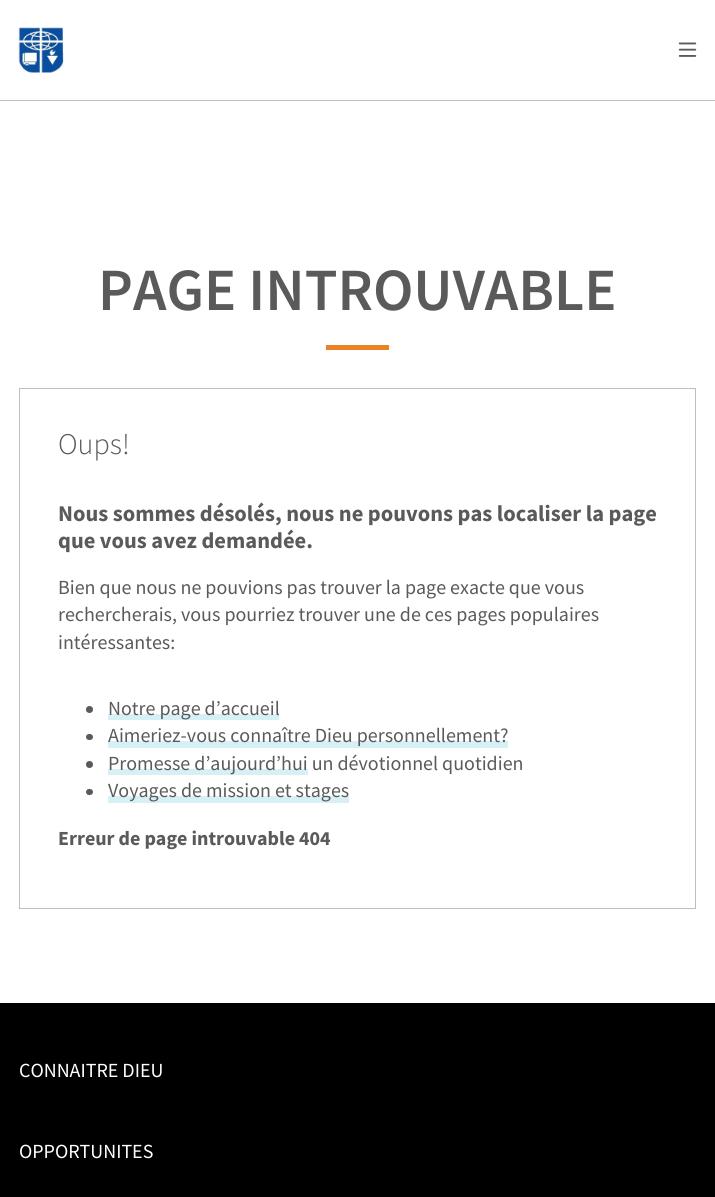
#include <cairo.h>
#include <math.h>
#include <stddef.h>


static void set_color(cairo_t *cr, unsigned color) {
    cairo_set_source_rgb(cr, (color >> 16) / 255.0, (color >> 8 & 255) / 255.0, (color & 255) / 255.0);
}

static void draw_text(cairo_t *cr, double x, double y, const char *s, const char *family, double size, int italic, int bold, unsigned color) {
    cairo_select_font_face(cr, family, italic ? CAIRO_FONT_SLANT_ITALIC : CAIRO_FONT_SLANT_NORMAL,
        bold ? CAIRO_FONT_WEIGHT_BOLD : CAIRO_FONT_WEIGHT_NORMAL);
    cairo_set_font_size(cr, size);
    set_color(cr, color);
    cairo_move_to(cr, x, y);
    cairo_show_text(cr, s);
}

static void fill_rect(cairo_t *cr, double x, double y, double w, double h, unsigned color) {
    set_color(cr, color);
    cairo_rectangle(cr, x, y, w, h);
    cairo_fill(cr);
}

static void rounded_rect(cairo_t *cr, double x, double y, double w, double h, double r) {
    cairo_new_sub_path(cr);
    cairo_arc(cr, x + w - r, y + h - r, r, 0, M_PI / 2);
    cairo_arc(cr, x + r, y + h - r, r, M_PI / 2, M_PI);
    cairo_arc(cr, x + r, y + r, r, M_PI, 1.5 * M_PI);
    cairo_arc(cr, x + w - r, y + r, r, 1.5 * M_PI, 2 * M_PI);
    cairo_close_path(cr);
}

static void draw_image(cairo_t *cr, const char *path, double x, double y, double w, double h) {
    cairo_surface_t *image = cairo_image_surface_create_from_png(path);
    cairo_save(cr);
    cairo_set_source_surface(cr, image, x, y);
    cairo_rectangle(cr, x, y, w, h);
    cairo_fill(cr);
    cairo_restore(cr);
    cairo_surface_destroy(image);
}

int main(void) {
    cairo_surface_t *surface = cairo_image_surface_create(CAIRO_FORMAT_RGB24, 715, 1197);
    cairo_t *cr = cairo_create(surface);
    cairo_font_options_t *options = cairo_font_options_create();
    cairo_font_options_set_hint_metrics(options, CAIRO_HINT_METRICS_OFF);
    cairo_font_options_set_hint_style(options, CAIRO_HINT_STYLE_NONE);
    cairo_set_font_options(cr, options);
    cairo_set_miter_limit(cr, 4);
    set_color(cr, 0xFFFFFF);
    cairo_paint(cr);
    fill_rect(cr, 0, 100, 715, 1, 0xBEBEBE);
    draw_image(cr, "assets/img1.png", 18, 27, 46, 46);
    draw_image(cr, "assets/img2.png", 678, 42, 19, 15);
    draw_text(cr, 98, 310, "PAGE INTROUVABLE", "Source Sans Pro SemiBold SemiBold", 60, 0, 0, 0x5A5A5A);
    fill_rect(cr, 326, 345, 63, 5, 0xEB8223);
    cairo_rectangle(cr, 19.5, 388.5, 676, 520);
    set_color(cr, 0xBEBEBE);
    cairo_set_line_width(cr, 1);
    cairo_stroke(cr);
    draw_text(cr, 58, 454, "Oups!", "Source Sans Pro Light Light", 30, 0, 0, 0x5A5A5A);
    draw_text(cr, 58, 521, "Nous sommes désolés, nous ne pouvons pas localiser la page", "Source Sans Pro", 22.5, 0, 1, 0x5A5A5A);
    draw_text(cr, 58, 548, "que vous avez demandée.", "Source Sans Pro", 22.5, 0, 1, 0x5A5A5A);
    draw_text(cr, 58, 594, "Bien que nous ne pouvions pas trouver la page exacte que vous", "Source Sans Pro", 20, 0, 0, 0x5A5A5A);
    draw_text(cr, 58, 621, "rechercherais, vous pourriez trouver une de ces pages populaires", "Source Sans Pro", 20, 0, 0, 0x5A5A5A);
    draw_text(cr, 58, 649, "intéressantes:", "Source Sans Pro", 20, 0, 0, 0x5A5A5A);
    cairo_new_path(cr);
    cairo_arc(cr, 89.5, 709.5, 3.5, 0, 2 * M_PI);
    cairo_fill(cr);
    fill_rect(cr, 108, 714, 171, 6, 0xD7F0F5);
    draw_text(cr, 108, 715, "Notre page d’accueil", "Source Sans Pro", 20, 0, 0, 0x5A5A5A);
    rounded_rect(cr, 86, 734, 7, 6, 3);
    cairo_fill(cr);
    fill_rect(cr, 108, 741, 400, 7, 0xD7F0F5);
    draw_text(cr, 108, 742, "Aimeriez-vous connaître Dieu personnellement?", "Source Sans Pro", 20, 0, 0, 0x5A5A5A);
    cairo_new_path(cr);
    cairo_arc(cr, 89.5, 764.5, 3.5, 0, 2 * M_PI);
    cairo_fill(cr);
    fill_rect(cr, 108, 769, 200, 6, 0xD7F0F5);
    draw_text(cr, 108, 770, "Promesse d’aujourd’hui un dévotionnel quotidien", "Source Sans Pro", 20, 0, 0, 0x5A5A5A);
    rounded_rect(cr, 86, 789, 7, 6, 3);
    cairo_fill(cr);
    fill_rect(cr, 108, 796, 241, 7, 0xD7F0F5);
    draw_text(cr, 108, 797, "Voyages de mission et stages", "Source Sans Pro", 20, 0, 0, 0x5A5A5A);
    draw_text(cr, 58, 845, "Erreur de page introuvable 404", "Source Sans Pro", 20, 0, 1, 0x5A5A5A);
    fill_rect(cr, 0, 1003, 715, 194, 0x000000);
    draw_text(cr, 19, 1077, "CONNAITRE DIEU", "Source Sans Pro", 20, 0, 0, 0xFFFFFF);
    draw_text(cr, 19, 1158, "OPPORTUNITES", "Source Sans Pro", 20, 0, 0, 0xFFFFFF);
    cairo_surface_write_to_png(surface, "output.png");
    cairo_font_options_destroy(options);
    cairo_destroy(cr);
    cairo_surface_destroy(surface);
    return 0;
}
